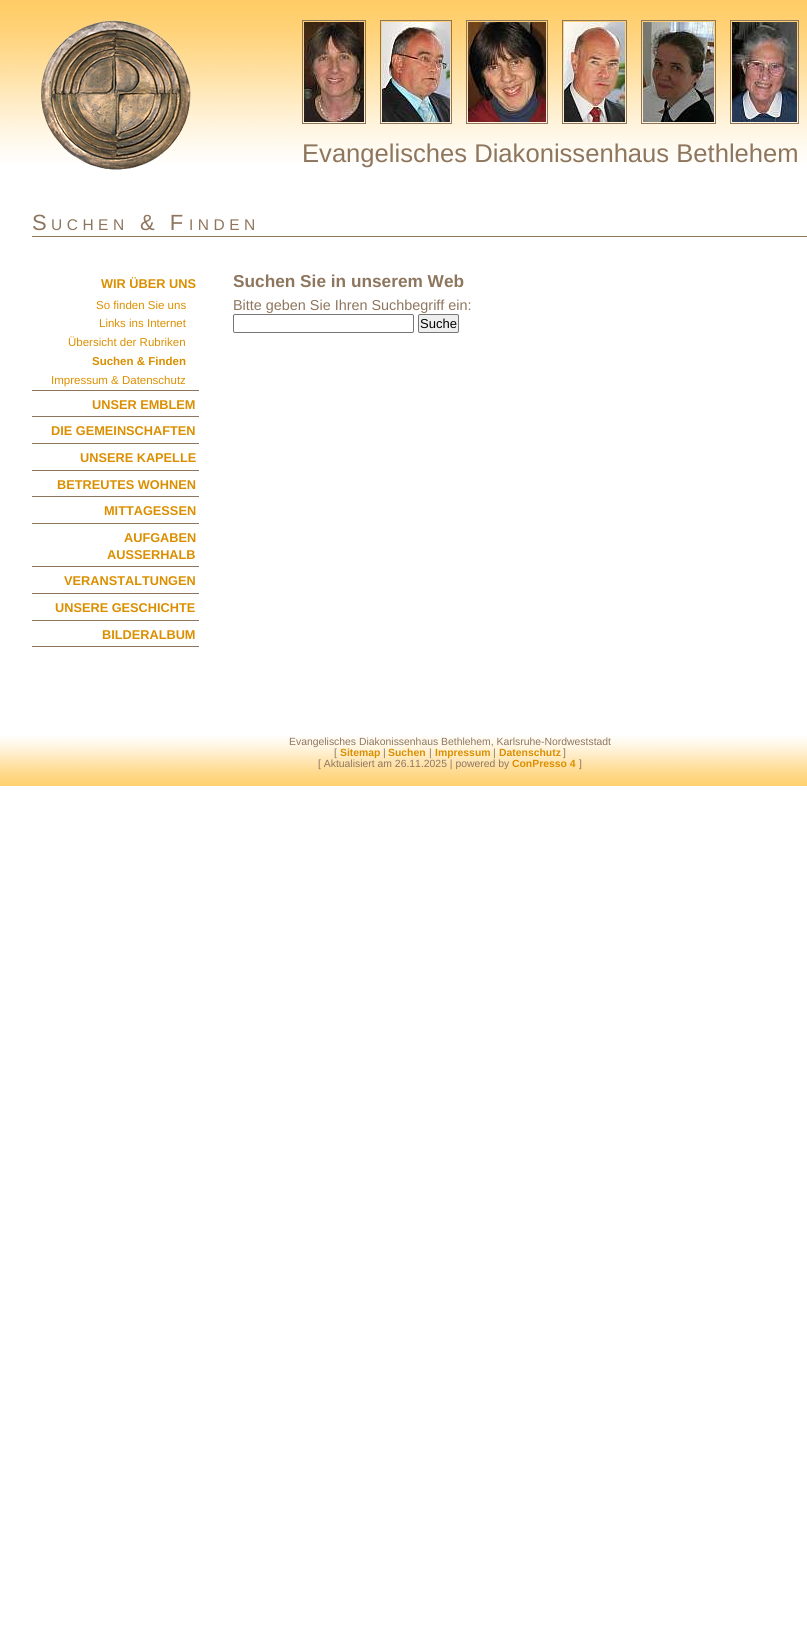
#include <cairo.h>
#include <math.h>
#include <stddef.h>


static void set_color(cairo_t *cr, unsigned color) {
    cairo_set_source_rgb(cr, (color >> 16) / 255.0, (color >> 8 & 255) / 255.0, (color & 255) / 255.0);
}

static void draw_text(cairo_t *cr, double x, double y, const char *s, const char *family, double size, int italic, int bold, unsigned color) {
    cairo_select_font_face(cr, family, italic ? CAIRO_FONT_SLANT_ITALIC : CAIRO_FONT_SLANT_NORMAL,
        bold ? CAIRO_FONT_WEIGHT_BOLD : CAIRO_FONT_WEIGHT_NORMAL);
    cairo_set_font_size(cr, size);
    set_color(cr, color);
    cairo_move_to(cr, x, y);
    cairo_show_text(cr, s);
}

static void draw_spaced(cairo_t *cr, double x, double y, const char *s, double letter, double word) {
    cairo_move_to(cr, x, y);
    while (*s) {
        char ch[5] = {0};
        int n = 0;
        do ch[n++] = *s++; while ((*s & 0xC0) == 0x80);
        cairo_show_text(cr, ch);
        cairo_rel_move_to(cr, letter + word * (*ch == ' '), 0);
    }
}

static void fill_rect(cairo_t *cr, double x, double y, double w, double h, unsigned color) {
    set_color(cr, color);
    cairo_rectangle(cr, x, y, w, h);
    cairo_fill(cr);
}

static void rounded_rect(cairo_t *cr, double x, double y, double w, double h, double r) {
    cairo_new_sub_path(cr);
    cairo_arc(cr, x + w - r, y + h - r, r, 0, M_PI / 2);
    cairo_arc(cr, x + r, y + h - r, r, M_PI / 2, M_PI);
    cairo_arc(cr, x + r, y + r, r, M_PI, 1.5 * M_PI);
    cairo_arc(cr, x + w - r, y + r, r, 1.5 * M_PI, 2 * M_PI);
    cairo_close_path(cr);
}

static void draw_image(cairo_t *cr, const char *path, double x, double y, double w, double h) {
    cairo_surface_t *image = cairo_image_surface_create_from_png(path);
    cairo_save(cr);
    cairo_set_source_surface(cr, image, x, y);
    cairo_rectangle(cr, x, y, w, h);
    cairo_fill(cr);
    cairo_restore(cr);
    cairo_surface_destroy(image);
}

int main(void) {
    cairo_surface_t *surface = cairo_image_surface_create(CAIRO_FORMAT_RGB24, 807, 1641);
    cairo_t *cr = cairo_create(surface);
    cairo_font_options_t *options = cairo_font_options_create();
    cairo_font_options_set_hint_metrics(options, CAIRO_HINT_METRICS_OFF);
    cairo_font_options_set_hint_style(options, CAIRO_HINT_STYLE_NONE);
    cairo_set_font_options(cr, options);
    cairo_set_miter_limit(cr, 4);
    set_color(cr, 0xFFFFFF);
    cairo_paint(cr);
    draw_image(cr, "assets/img1.png", 0, 0, 807, 164);
    draw_image(cr, "assets/img2.png", 41, 20, 150, 150);
    cairo_rectangle(cr, 302.5, 20.5, 63, 103);
    set_color(cr, 0x8E765E);
    cairo_set_line_width(cr, 1);
    cairo_stroke(cr);
    cairo_rectangle(cr, 380.5, 20.5, 71, 103);
    cairo_stroke(cr);
    cairo_rectangle(cr, 466.5, 20.5, 81, 103);
    cairo_stroke(cr);
    cairo_rectangle(cr, 562.5, 20.5, 64, 103);
    cairo_stroke(cr);
    cairo_rectangle(cr, 641.5, 20.5, 74, 103);
    cairo_stroke(cr);
    cairo_rectangle(cr, 730.5, 20.5, 68, 103);
    cairo_stroke(cr);
    draw_image(cr, "assets/img3.png", 304, 22, 60, 100);
    draw_image(cr, "assets/img4.png", 382, 22, 68, 100);
    draw_image(cr, "assets/img5.png", 468, 22, 78, 100);
    draw_image(cr, "assets/img6.png", 564, 22, 61, 100);
    draw_image(cr, "assets/img7.png", 643, 22, 71, 100);
    draw_image(cr, "assets/img8.png", 732, 22, 65, 100);
    draw_text(cr, 302, 162, "Evangelisches Diakonissenhaus Bethlehem", "Liberation Sans", 25.6, 0, 0, 0x8E765E);
    fill_rect(cr, 32, 236, 775, 1, 0x8E765E);
    cairo_set_font_size(cr, 22);
    draw_spaced(cr, 32, 230, "S", 4.5, 0);
    cairo_set_font_size(cr, 15.5);
    draw_spaced(cr, 51, 230, "UCHEN", 4.5, 0);
    cairo_set_font_size(cr, 22);
    draw_spaced(cr, 140, 230, "& F", 4.5, 0);
    cairo_set_font_size(cr, 15.5);
    draw_spaced(cr, 189, 230, "INDEN", 4.5, 0);
    fill_rect(cr, 32, 390, 167, 1, 0x8E765E);
    draw_text(cr, 101, 288, "WIR ÜBER UNS", "Liberation Sans", 12.75, 0, 1, 0xDB8F00);
    draw_text(cr, 96, 309, "So finden Sie uns", "Liberation Sans", 11.5, 0, 0, 0xDB8F00);
    draw_text(cr, 99, 327, "Links ins Internet", "Liberation Sans", 11.5, 0, 0, 0xDB8F00);
    draw_text(cr, 68, 346, "Übersicht der Rubriken", "Liberation Sans", 11.5, 0, 0, 0xDB8F00);
    draw_text(cr, 92, 365, "Suchen & Finden", "Liberation Sans", 11.5, 0, 1, 0xDB8F00);
    draw_text(cr, 51, 384, "Impressum & Datenschutz", "Liberation Sans", 11.5, 0, 0, 0xDB8F00);
    fill_rect(cr, 32, 416, 167, 1, 0x8E765E);
    draw_text(cr, 92, 409, "UNSER EMBLEM", "Liberation Sans", 12.75, 0, 1, 0xDB8F00);
    fill_rect(cr, 32, 443, 167, 1, 0x8E765E);
    draw_text(cr, 51, 435, "DIE GEMEINSCHAFTEN", "Liberation Sans", 12.75, 0, 1, 0xDB8F00);
    fill_rect(cr, 32, 470, 167, 1, 0x8E765E);
    draw_text(cr, 80, 462, "UNSERE KAPELLE", "Liberation Sans", 12.75, 0, 1, 0xDB8F00);
    fill_rect(cr, 32, 496, 167, 1, 0x8E765E);
    draw_text(cr, 57, 489, "BETREUTES WOHNEN", "Liberation Sans", 12.75, 0, 1, 0xDB8F00);
    fill_rect(cr, 32, 523, 167, 1, 0x8E765E);
    draw_text(cr, 104, 515, "MITTAGESSEN", "Liberation Sans", 12.75, 0, 1, 0xDB8F00);
    fill_rect(cr, 32, 566, 167, 1, 0x8E765E);
    draw_text(cr, 124, 542, "AUFGABEN", "Liberation Sans", 12.75, 0, 1, 0xDB8F00);
    draw_text(cr, 107, 559, "AUSSERHALB", "Liberation Sans", 12.75, 0, 1, 0xDB8F00);
    fill_rect(cr, 32, 593, 167, 1, 0x8E765E);
    draw_text(cr, 64, 585, "VERANSTALTUNGEN", "Liberation Sans", 12.75, 0, 1, 0xDB8F00);
    fill_rect(cr, 32, 620, 167, 1, 0x8E765E);
    draw_text(cr, 55, 612, "UNSERE GESCHICHTE", "Liberation Sans", 12.75, 0, 1, 0xDB8F00);
    fill_rect(cr, 32, 646, 167, 1, 0x8E765E);
    draw_text(cr, 102, 639, "BILDERALBUM", "Liberation Sans", 12.75, 0, 1, 0xDB8F00);
    draw_text(cr, 233, 287, "Suchen Sie in unserem Web", "Liberation Sans", 17.25, 0, 1, 0x8E765E);
    draw_text(cr, 233, 310, "Bitte geben Sie Ihren Suchbegriff ein:", "Liberation Sans", 14.4, 0, 0, 0x8E765E);
    rounded_rect(cr, 233.5, 314.5, 180, 18, 1.5);
    set_color(cr, 0x767676);
    cairo_stroke(cr);
    set_color(cr, 0xEFEFEF);
    rounded_rect(cr, 418.5, 314.5, 40, 18, 1.5);
    cairo_fill_preserve(cr);
    set_color(cr, 0x767676);
    cairo_stroke(cr);
    draw_text(cr, 420, 328, "Suche", "Liberation Sans", 13, 0, 0, 0x000000);
    draw_image(cr, "assets/img9.png", 0, 736, 807, 50);
    draw_text(cr, 289, 745, "Evangelisches Diakonissenhaus Bethlehem, Karlsruhe-Nordweststadt", "Liberation Sans", 10.4, 0, 0, 0x8E765E);
    draw_text(cr, 334, 756, "[", "Liberation Sans", 10.4, 0, 0, 0x8E765E);
    draw_text(cr, 340, 756, "Sitemap", "Liberation Sans", 10.4, 0, 1, 0xDB8F00);
    draw_text(cr, 383, 756, "|", "Liberation Sans", 10.4, 0, 0, 0x8E765E);
    draw_text(cr, 388, 756, "Suchen", "Liberation Sans", 10.4, 0, 1, 0xDB8F00);
    draw_text(cr, 429, 756, "|", "Liberation Sans", 10.4, 0, 0, 0x8E765E);
    draw_text(cr, 435, 756, "Impressum", "Liberation Sans", 10.4, 0, 1, 0xDB8F00);
    draw_text(cr, 493, 756, "|", "Liberation Sans", 10.4, 0, 0, 0x8E765E);
    draw_text(cr, 499, 756, "Datenschutz", "Liberation Sans", 10.4, 0, 1, 0xDB8F00);
    draw_text(cr, 563, 756, "]", "Liberation Sans", 10.4, 0, 0, 0x8E765E);
    draw_text(cr, 318, 767, "[ Aktualisiert am 26.11.2025 | powered by", "Liberation Sans", 10.4, 0, 0, 0x8E765E);
    draw_text(cr, 512, 767, "ConPresso 4", "Liberation Sans", 10.4, 0, 1, 0xDB8F00);
    draw_text(cr, 579, 767, "]", "Liberation Sans", 10.4, 0, 0, 0x8E765E);
    cairo_surface_write_to_png(surface, "output.png");
    cairo_font_options_destroy(options);
    cairo_destroy(cr);
    cairo_surface_destroy(surface);
    return 0;
}
